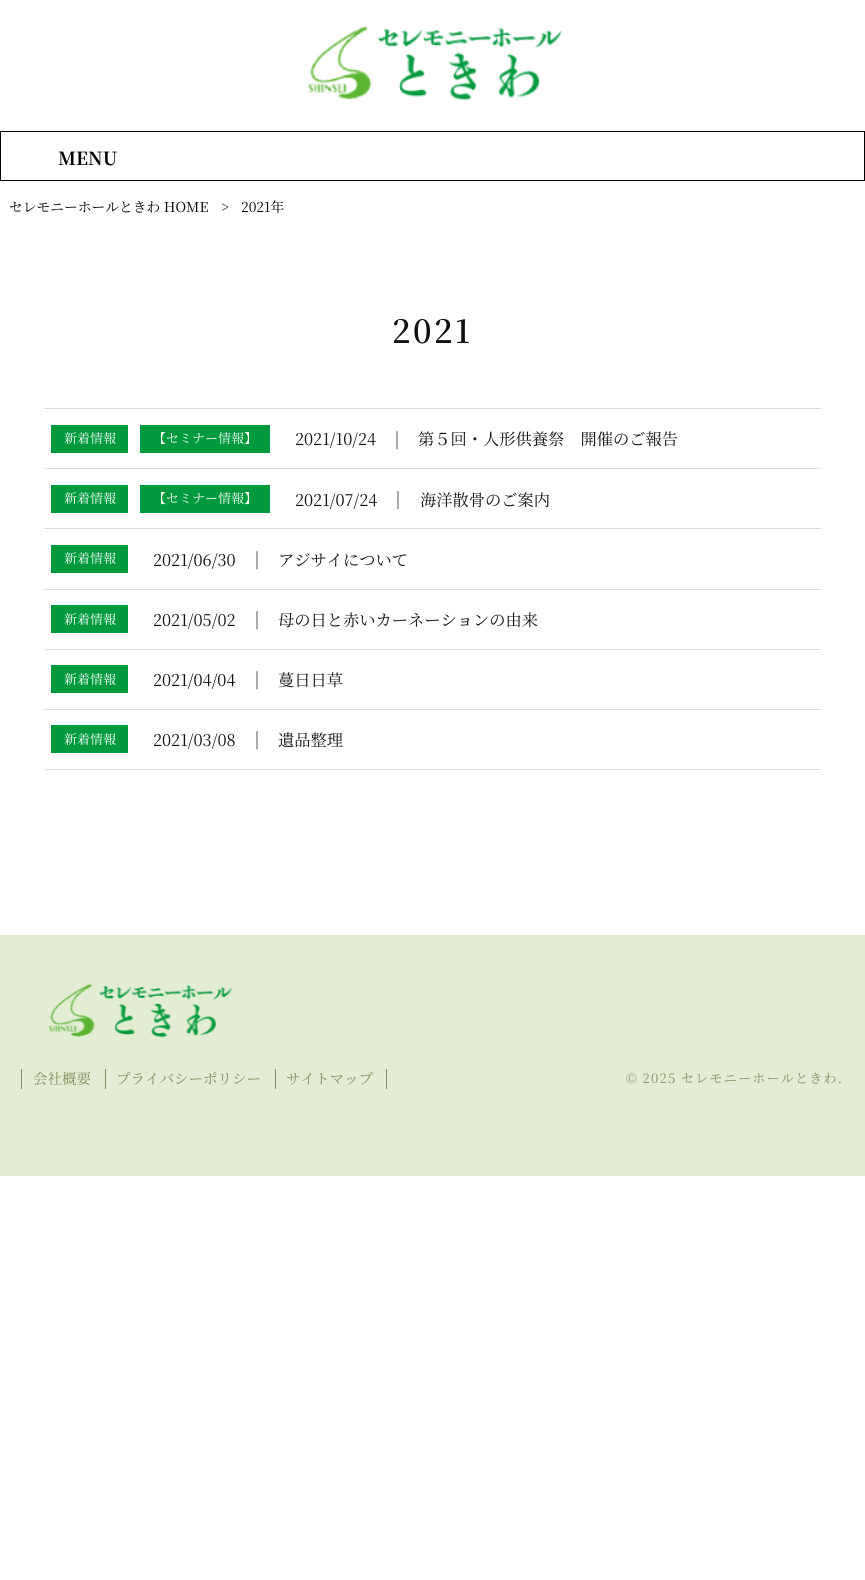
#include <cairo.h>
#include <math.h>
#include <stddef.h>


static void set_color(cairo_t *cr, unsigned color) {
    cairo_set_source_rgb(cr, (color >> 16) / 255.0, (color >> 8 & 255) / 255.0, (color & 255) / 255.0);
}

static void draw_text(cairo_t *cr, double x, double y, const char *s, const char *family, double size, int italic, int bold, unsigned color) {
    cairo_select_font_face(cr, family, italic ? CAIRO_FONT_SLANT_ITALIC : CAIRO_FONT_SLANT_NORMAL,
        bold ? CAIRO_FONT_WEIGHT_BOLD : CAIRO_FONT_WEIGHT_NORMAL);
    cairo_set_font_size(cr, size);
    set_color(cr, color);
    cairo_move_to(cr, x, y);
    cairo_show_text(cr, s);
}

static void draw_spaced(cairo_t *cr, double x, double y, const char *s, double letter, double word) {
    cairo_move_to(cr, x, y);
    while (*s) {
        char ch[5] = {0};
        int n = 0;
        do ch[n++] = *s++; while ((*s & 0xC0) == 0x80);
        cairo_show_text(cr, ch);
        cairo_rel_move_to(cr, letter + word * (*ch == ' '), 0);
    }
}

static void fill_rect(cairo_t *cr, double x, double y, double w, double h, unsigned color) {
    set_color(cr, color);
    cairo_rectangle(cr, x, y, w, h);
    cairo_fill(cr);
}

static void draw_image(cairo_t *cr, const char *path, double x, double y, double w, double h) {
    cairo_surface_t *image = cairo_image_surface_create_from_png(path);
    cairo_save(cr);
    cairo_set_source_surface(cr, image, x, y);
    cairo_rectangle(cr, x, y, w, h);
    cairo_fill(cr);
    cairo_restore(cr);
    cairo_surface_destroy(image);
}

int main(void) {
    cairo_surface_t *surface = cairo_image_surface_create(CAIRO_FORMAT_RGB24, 865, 1580);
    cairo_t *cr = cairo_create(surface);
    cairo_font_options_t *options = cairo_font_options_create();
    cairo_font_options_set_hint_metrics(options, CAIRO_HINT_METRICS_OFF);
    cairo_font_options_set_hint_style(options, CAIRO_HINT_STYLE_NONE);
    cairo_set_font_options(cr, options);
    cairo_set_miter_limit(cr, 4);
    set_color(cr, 0xFFFFFF);
    cairo_paint(cr);
    draw_image(cr, "assets/img1.png", 307, 25, 255, 75);
    cairo_rectangle(cr, 0.5, 131.5, 864, 49);
    set_color(cr, 0x000000);
    cairo_set_line_width(cr, 1);
    cairo_stroke(cr);
    draw_text(cr, 58, 165, "MENU", "Noto Serif JP", 18, 0, 1, 0x000000);
    draw_text(cr, 9, 212, "セレモニーホールときわ HOME", "Noto Serif JP", 13.75, 0, 0, 0x000000);
    draw_text(cr, 221, 212, ">", "Noto Serif JP", 13.75, 0, 0, 0x000000);
    draw_text(cr, 241, 212, "2021年", "Noto Serif JP", 13.75, 0, 0, 0x000000);
    cairo_select_font_face(cr, "Noto Serif JP SemiBold", CAIRO_FONT_SLANT_NORMAL, CAIRO_FONT_WEIGHT_NORMAL);
    cairo_set_font_size(cr, 32);
    set_color(cr, 0x111111);
    draw_spaced(cr, 392, 343, "2021", 2.5, 0);
    fill_rect(cr, 44, 408, 777, 1, 0xDDDDDD);
    fill_rect(cr, 44, 468, 777, 1, 0xDDDDDD);
    fill_rect(cr, 51, 425, 77, 28, 0x009A3E);
    draw_text(cr, 64, 443, "新着情報", "Noto Serif JP", 13, 0, 0, 0xFFFFFF);
    fill_rect(cr, 140, 425, 130, 28, 0x009A3E);
    draw_text(cr, 153, 443, "【セミナー情報】", "Noto Serif JP", 13, 0, 0, 0xFFFFFF);
    draw_text(cr, 295, 445, "2021/10/24", "Noto Serif JP", 16.25, 0, 0, 0x111111);
    draw_text(cr, 388, 447, "│", "Noto Serif JP", 18, 0, 0, 0x111111);
    draw_text(cr, 418, 445, "第５回・人形供養祭　開催のご報告", "Noto Serif JP", 16.25, 0, 0, 0x111111);
    fill_rect(cr, 44, 528, 777, 1, 0xDDDDDD);
    fill_rect(cr, 51, 485, 77, 28, 0x009A3E);
    draw_text(cr, 64, 503, "新着情報", "Noto Serif JP", 13, 0, 0, 0xFFFFFF);
    fill_rect(cr, 140, 485, 130, 28, 0x009A3E);
    draw_text(cr, 153, 503, "【セミナー情報】", "Noto Serif JP", 13, 0, 0, 0xFFFFFF);
    draw_text(cr, 295, 506, "2021/07/24", "Noto Serif JP", 16.25, 0, 0, 0x111111);
    draw_text(cr, 389, 507, "│", "Noto Serif JP", 18, 0, 0, 0x111111);
    draw_text(cr, 420, 506, "海洋散骨のご案内", "Noto Serif JP", 16.25, 0, 0, 0x111111);
    fill_rect(cr, 44, 589, 777, 1, 0xDDDDDD);
    fill_rect(cr, 51, 545, 77, 28, 0x009A3E);
    draw_text(cr, 64, 563, "新着情報", "Noto Serif JP", 13, 0, 0, 0xFFFFFF);
    draw_text(cr, 153, 566, "2021/06/30", "Noto Serif JP", 16.25, 0, 0, 0x111111);
    draw_text(cr, 248, 567, "│", "Noto Serif JP", 18, 0, 0, 0x111111);
    draw_text(cr, 278, 566, "アジサイについて", "Noto Serif JP", 16.25, 0, 0, 0x111111);
    fill_rect(cr, 44, 649, 777, 1, 0xDDDDDD);
    fill_rect(cr, 51, 605, 77, 28, 0x009A3E);
    draw_text(cr, 64, 624, "新着情報", "Noto Serif JP", 13, 0, 0, 0xFFFFFF);
    draw_text(cr, 153, 626, "2021/05/02", "Noto Serif JP", 16.25, 0, 0, 0x111111);
    draw_text(cr, 248, 627, "│", "Noto Serif JP", 18, 0, 0, 0x111111);
    draw_text(cr, 278, 626, "母の日と赤いカーネーションの由来", "Noto Serif JP", 16.25, 0, 0, 0x111111);
    fill_rect(cr, 44, 709, 777, 1, 0xDDDDDD);
    fill_rect(cr, 51, 665, 77, 28, 0x009A3E);
    draw_text(cr, 64, 684, "新着情報", "Noto Serif JP", 13, 0, 0, 0xFFFFFF);
    draw_text(cr, 153, 686, "2021/04/04", "Noto Serif JP", 16.25, 0, 0, 0x111111);
    draw_text(cr, 248, 687, "│", "Noto Serif JP", 18, 0, 0, 0x111111);
    draw_text(cr, 278, 686, "蔓日日草", "Noto Serif JP", 16.25, 0, 0, 0x111111);
    fill_rect(cr, 44, 769, 777, 1, 0xDDDDDD);
    fill_rect(cr, 51, 725, 77, 28, 0x009A3E);
    draw_text(cr, 64, 744, "新着情報", "Noto Serif JP", 13, 0, 0, 0xFFFFFF);
    draw_text(cr, 153, 746, "2021/03/08", "Noto Serif JP", 16.25, 0, 0, 0x111111);
    draw_text(cr, 248, 747, "│", "Noto Serif JP", 18, 0, 0, 0x111111);
    draw_text(cr, 278, 746, "遺品整理", "Noto Serif JP", 16.25, 0, 0, 0x111111);
    fill_rect(cr, 0, 935, 865, 241, 0xE3EDD4);
    draw_image(cr, "assets/img2.png", 48, 983, 185, 55);
    fill_rect(cr, 21, 1069, 1, 20, 0x858B60);
    draw_text(cr, 33, 1084, "会社概要", "Noto Serif JP", 14.5, 0, 0, 0x858B60);
    fill_rect(cr, 105, 1069, 1, 20, 0x858B60);
    draw_text(cr, 116, 1084, "プライバシーポリシー", "Noto Serif JP", 14.5, 0, 0, 0x858B60);
    fill_rect(cr, 275, 1069, 1, 20, 0x858B60);
    draw_text(cr, 286, 1084, "サイトマップ", "Noto Serif JP", 14.5, 0, 0, 0x858B60);
    fill_rect(cr, 386, 1069, 1, 20, 0x858B60);
    cairo_set_font_size(cr, 13);
    draw_spaced(cr, 626, 1083, "© 2025 セレモニーホールときわ.", 1.25, 0);
    cairo_surface_write_to_png(surface, "output.png");
    cairo_font_options_destroy(options);
    cairo_destroy(cr);
    cairo_surface_destroy(surface);
    return 0;
}
